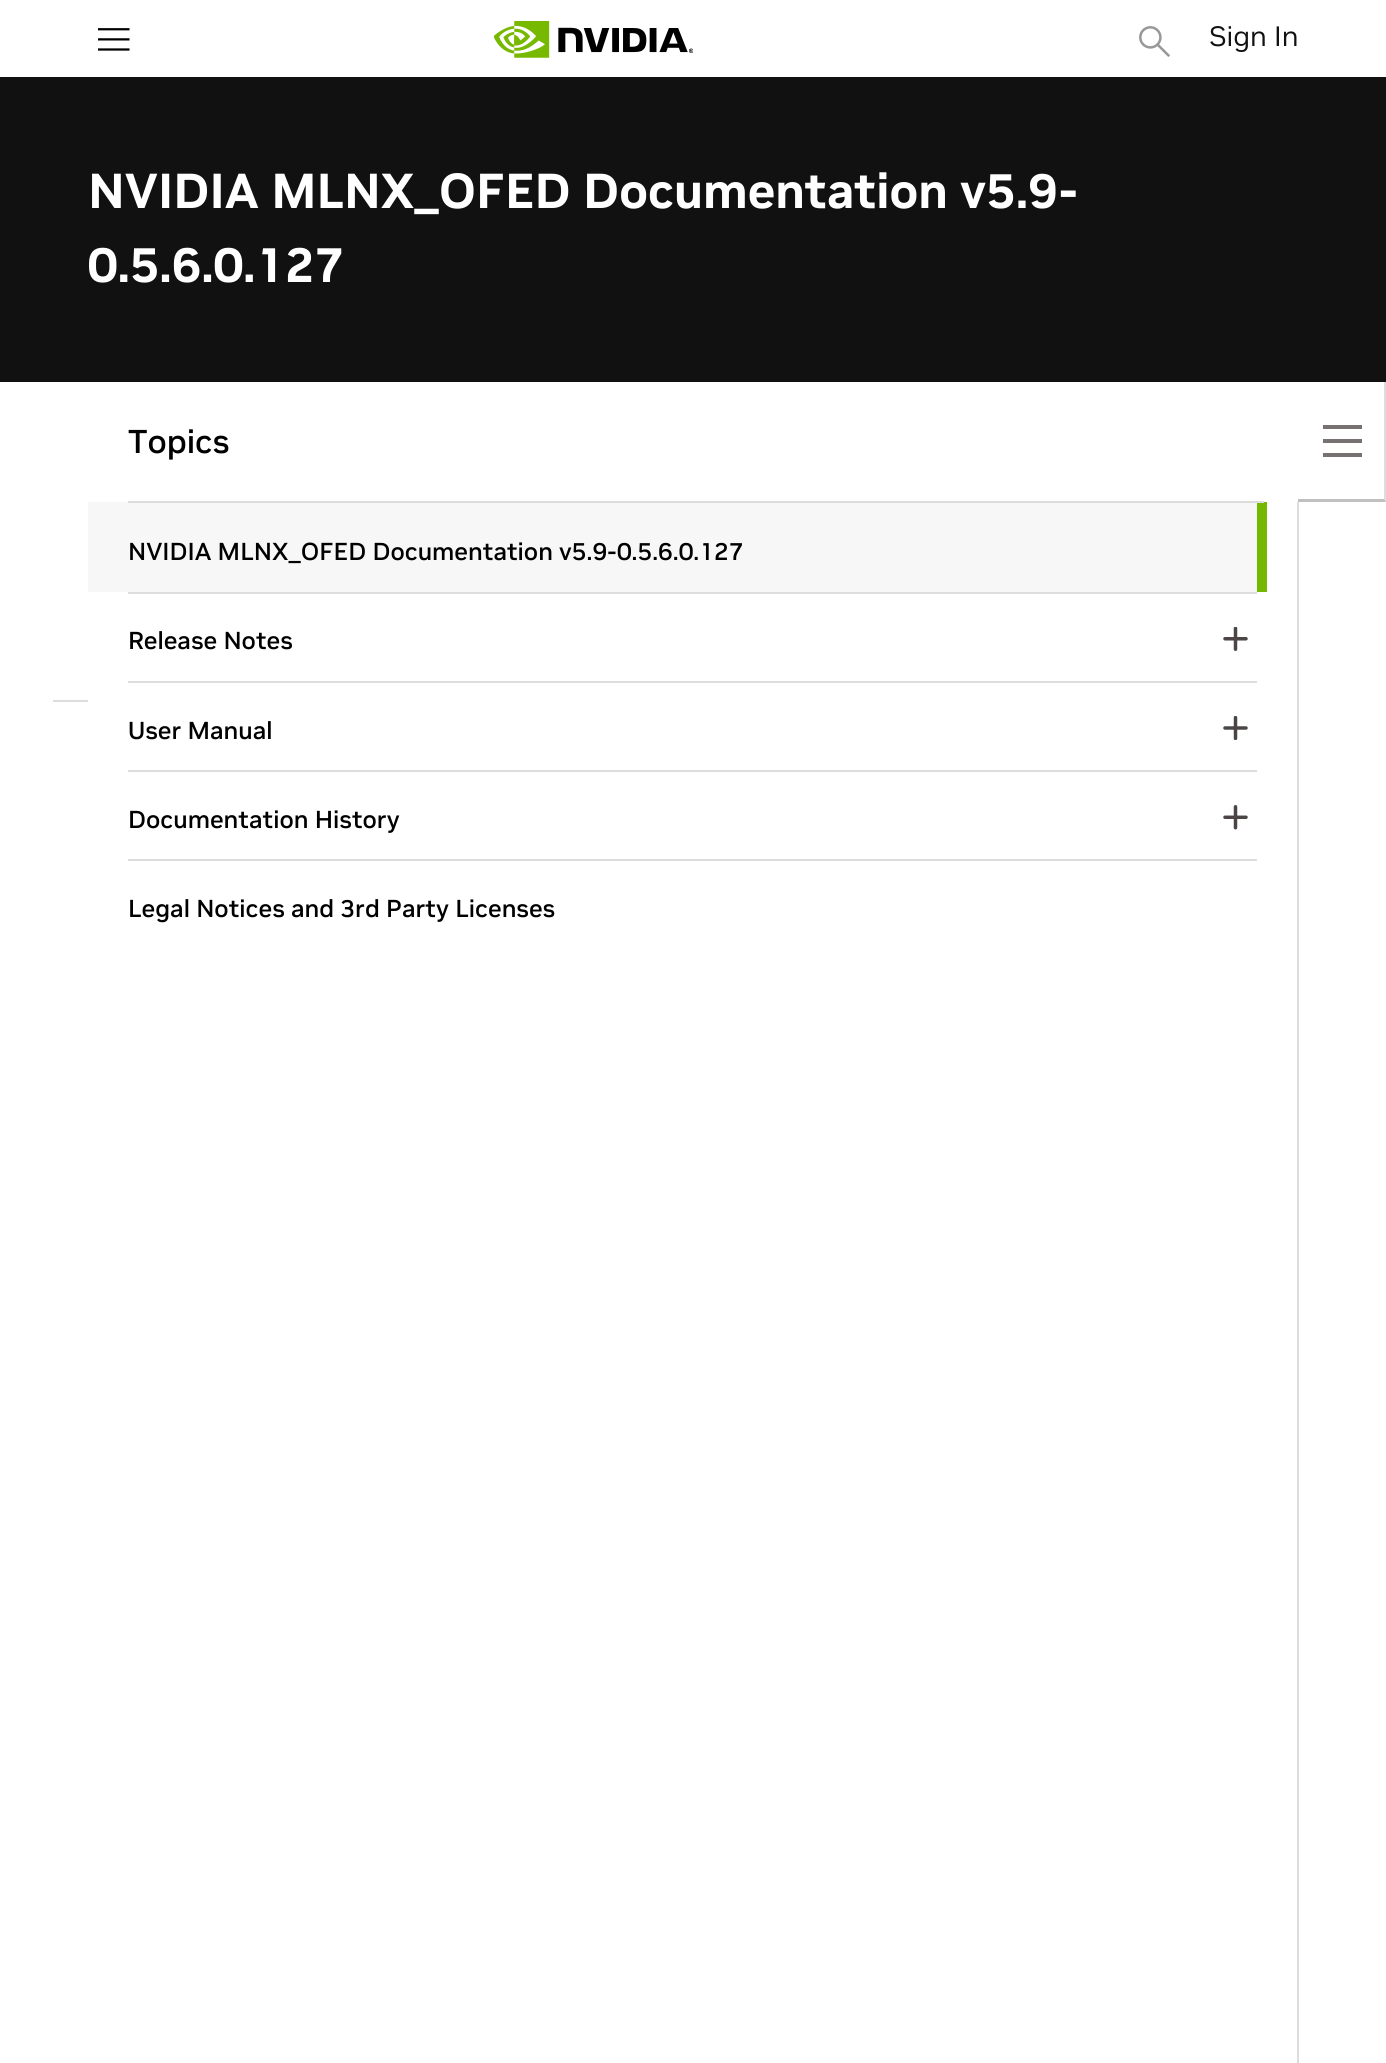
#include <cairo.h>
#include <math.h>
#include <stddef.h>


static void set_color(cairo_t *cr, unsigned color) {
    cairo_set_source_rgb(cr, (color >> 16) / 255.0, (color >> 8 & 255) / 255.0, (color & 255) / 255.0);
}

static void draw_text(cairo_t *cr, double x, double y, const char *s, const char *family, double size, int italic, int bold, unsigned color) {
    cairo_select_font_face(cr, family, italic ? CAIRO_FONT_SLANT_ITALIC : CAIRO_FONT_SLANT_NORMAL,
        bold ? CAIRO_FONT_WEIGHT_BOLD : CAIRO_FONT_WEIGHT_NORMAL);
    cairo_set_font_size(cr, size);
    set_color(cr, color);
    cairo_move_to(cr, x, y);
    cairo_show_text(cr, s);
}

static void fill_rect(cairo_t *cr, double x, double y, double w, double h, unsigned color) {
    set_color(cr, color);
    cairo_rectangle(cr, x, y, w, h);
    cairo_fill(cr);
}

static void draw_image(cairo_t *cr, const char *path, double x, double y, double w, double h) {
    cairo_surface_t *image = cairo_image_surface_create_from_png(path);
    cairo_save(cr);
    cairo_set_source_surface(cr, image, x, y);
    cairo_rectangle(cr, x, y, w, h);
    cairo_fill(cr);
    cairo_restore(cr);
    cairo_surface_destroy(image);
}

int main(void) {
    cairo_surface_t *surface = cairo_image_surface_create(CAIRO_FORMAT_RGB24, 1386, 2063);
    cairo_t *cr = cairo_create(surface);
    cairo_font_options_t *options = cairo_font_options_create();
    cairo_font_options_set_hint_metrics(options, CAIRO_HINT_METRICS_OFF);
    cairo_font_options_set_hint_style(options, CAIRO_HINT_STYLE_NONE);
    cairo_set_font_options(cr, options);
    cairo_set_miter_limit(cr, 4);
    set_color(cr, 0xFFFFFF);
    cairo_paint(cr);
    draw_image(cr, "assets/img1.png", 98, 28, 32, 23);
    draw_image(cr, "assets/img2.png", 494, 21, 199, 37);
    draw_image(cr, "assets/img3.png", 1139, 26, 31, 31);
    draw_text(cr, 1209, 46, "Sign In", "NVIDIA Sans", 28, 0, 0, 0x111111);
    fill_rect(cr, 0, 77, 1386, 305, 0x111111);
    draw_text(cr, 88, 208, "NVIDIA MLNX_OFED Documentation v5.9-", "NVIDIA Sans", 49, 0, 1, 0xFFFFFF);
    draw_text(cr, 88, 282, "0.5.6.0.127", "NVIDIA Sans", 49, 0, 1, 0xFFFFFF);
    fill_rect(cr, 53, 700, 35, 2, 0xDDDDDD);
    draw_text(cr, 128, 453, "Topics", "NVIDIA Sans Medium", 33, 0, 0, 0x000000);
    fill_rect(cr, 88, 502, 1169, 90, 0xF7F7F7);
    fill_rect(cr, 1257, 502, 10, 90, 0x74B900);
    fill_rect(cr, 128, 501, 1136, 2, 0xDDDDDD);
    cairo_new_path(cr);
    cairo_move_to(cr, 1386, 382);
    cairo_line_to(cr, 1386, 502);
    cairo_line_to(cr, 1384, 499);
    cairo_line_to(cr, 1384, 382);
    cairo_close_path(cr);
    cairo_fill(cr);
    set_color(cr, 0xC0C0C0);
    cairo_new_path(cr);
    cairo_move_to(cr, 1386, 502);
    cairo_line_to(cr, 1298, 502);
    cairo_line_to(cr, 1298, 499);
    cairo_line_to(cr, 1384, 499);
    cairo_close_path(cr);
    cairo_fill(cr);
    fill_rect(cr, 1323, 425, 39, 4, 0x787171);
    fill_rect(cr, 1323, 439, 39, 4, 0x787171);
    fill_rect(cr, 1323, 453, 39, 4, 0x787171);
    fill_rect(cr, 1297, 502, 2, 1561, 0xDDDDDD);
    draw_text(cr, 128, 560, "NVIDIA MLNX_OFED Documentation v5.9-0.5.6.0.127", "NVIDIA Sans Medium", 24.5, 0, 0, 0x000000);
    fill_rect(cr, 128, 592, 1129, 2, 0xDDDDDD);
    draw_text(cr, 128, 649, "Release Notes", "NVIDIA Sans Medium", 24.5, 0, 0, 0x000000);
    draw_image(cr, "assets/img4.png", 1223, 627, 25, 24);
    fill_rect(cr, 128, 681, 1129, 2, 0xDDDDDD);
    draw_text(cr, 128, 739, "User Manual", "NVIDIA Sans Medium", 24.5, 0, 0, 0x000000);
    draw_image(cr, "assets/img5.png", 1223, 716, 25, 24);
    fill_rect(cr, 128, 770, 1129, 2, 0xDDDDDD);
    draw_text(cr, 128, 828, "Documentation History", "NVIDIA Sans Medium", 24.5, 0, 0, 0x000000);
    draw_image(cr, "assets/img6.png", 1223, 805, 25, 25);
    fill_rect(cr, 128, 859, 1129, 2, 0xDDDDDD);
    draw_text(cr, 128, 917, "Legal Notices and 3rd Party Licenses", "NVIDIA Sans Medium", 24.5, 0, 0, 0x000000);
    cairo_surface_write_to_png(surface, "output.png");
    cairo_font_options_destroy(options);
    cairo_destroy(cr);
    cairo_surface_destroy(surface);
    return 0;
}
